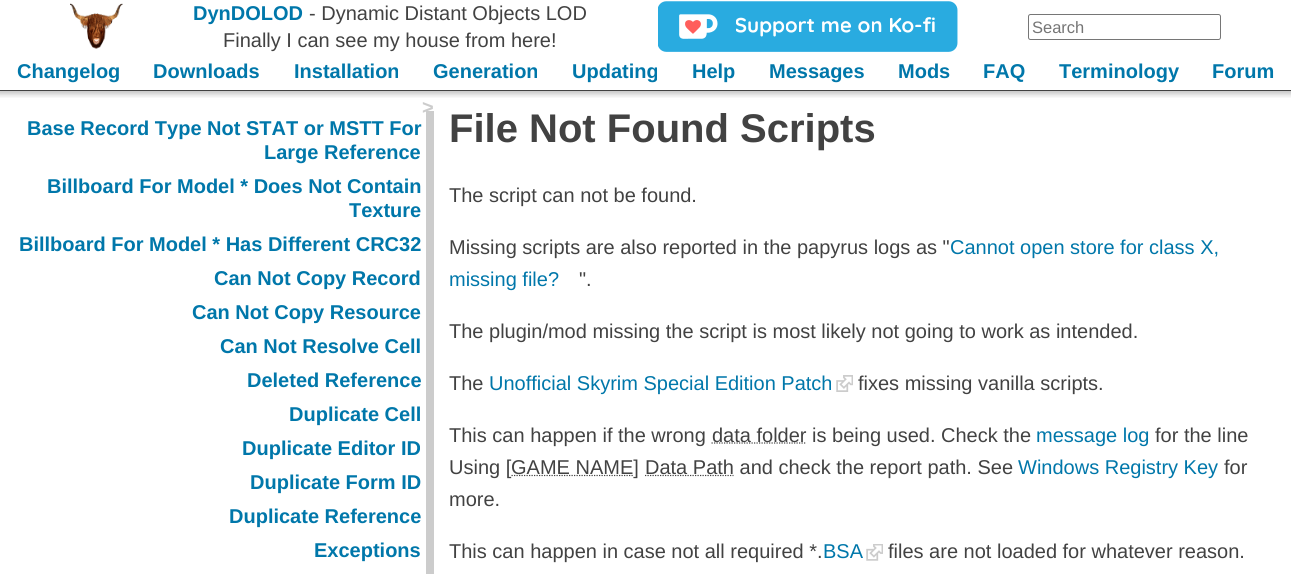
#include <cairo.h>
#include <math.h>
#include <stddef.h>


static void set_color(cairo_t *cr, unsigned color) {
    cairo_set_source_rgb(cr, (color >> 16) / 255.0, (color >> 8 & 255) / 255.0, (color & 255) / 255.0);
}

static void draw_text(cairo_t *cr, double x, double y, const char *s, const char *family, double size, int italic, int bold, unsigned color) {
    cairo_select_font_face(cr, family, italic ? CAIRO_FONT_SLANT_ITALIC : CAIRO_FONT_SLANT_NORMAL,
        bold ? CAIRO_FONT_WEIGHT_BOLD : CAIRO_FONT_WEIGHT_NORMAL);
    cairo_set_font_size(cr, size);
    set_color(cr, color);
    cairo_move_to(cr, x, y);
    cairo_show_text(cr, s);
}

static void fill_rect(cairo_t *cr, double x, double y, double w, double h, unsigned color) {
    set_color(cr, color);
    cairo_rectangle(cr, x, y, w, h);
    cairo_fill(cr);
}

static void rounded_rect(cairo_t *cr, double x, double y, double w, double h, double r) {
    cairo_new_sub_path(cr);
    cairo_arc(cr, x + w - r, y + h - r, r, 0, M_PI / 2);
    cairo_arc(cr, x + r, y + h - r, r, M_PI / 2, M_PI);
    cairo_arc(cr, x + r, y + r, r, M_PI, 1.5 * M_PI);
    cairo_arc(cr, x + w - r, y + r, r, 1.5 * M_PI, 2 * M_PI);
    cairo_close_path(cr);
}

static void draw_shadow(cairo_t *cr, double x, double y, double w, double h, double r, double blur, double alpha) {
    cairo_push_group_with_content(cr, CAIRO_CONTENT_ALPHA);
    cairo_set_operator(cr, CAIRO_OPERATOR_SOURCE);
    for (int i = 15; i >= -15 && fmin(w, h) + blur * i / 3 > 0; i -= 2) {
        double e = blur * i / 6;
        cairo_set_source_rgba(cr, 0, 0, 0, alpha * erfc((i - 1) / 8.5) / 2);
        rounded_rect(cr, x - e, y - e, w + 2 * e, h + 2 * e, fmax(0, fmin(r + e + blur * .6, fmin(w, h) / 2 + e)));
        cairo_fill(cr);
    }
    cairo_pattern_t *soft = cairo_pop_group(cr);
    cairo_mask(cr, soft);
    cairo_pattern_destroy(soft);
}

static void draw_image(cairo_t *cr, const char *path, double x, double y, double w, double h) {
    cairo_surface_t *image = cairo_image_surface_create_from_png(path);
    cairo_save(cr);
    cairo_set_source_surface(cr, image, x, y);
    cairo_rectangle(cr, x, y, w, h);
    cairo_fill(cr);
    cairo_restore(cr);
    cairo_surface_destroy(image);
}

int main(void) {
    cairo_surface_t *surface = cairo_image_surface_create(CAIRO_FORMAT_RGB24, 1291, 574);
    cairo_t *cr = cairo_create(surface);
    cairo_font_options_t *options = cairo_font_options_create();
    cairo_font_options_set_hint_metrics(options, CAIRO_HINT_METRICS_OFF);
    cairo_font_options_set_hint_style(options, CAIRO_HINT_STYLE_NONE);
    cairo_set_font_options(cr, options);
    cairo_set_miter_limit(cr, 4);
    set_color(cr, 0xFFFFFF);
    cairo_paint(cr);
    cairo_save(cr);
    cairo_rectangle(cr, 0, 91, 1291, 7);
    cairo_clip(cr);
    set_color(cr, 0x000000);
    draw_shadow(cr, -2, -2, 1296, 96, 0, 3, 0.25);
    cairo_restore(cr);
    fill_rect(cr, 0, 90, 1291, 1, 0x424242);
    draw_image(cr, "assets/img1.png", 70, 3, 53, 46);
    draw_text(cr, 193, 20, "DynDOLOD", "Liberation Sans", 20, 0, 1, 0x0077AA);
    draw_text(cr, 309, 20, "- Dynamic Distant Objects LOD", "Liberation Sans", 20, 0, 0, 0x424242);
    draw_text(cr, 223, 47, "Finally I can see my house from here!", "Liberation Sans", 20, 0, 0, 0x424242);
    draw_image(cr, "assets/img2.png", 658, 1, 300, 51);
    rounded_rect(cr, 1028.5, 14.5, 192, 25, 2);
    set_color(cr, 0x767676);
    cairo_set_line_width(cr, 1);
    cairo_stroke(cr);
    draw_text(cr, 1032, 33, "Search", "Liberation Sans", 16.5, 0, 0, 0x757575);
    draw_text(cr, 17, 78, "Changelog", "Liberation Sans", 20, 0, 1, 0x0077AA);
    draw_text(cr, 153, 78, "Downloads", "Liberation Sans", 20, 0, 1, 0x0077AA);
    draw_text(cr, 294, 78, "Installation", "Liberation Sans", 20, 0, 1, 0x0077AA);
    draw_text(cr, 433, 78, "Generation", "Liberation Sans", 20, 0, 1, 0x0077AA);
    draw_text(cr, 572, 78, "Updating", "Liberation Sans", 20, 0, 1, 0x0077AA);
    draw_text(cr, 692, 78, "Help", "Liberation Sans", 20, 0, 1, 0x0077AA);
    draw_text(cr, 769, 78, "Messages", "Liberation Sans", 20, 0, 1, 0x0077AA);
    draw_text(cr, 898, 78, "Mods", "Liberation Sans", 20, 0, 1, 0x0077AA);
    draw_text(cr, 983, 78, "FAQ", "Liberation Sans", 20, 0, 1, 0x0077AA);
    draw_text(cr, 1059, 78, "Terminology", "Liberation Sans", 20, 0, 1, 0x0077AA);
    draw_text(cr, 1212, 78, "Forum", "Liberation Sans", 20, 0, 1, 0x0077AA);
    fill_rect(cr, 426, 111, 8, 463, 0xCCCCCC);
    draw_text(cr, 422, 114, ">", "Liberation Sans", 20, 0, 1, 0xCCCCCC);
    draw_text(cr, 27, 135, "Base Record Type Not STAT or MSTT For", "Liberation Sans", 20, 0, 1, 0x0077AA);
    draw_text(cr, 264, 159, "Large Reference", "Liberation Sans", 20, 0, 1, 0x0077AA);
    draw_text(cr, 47, 193, "Billboard For Model * Does Not Contain", "Liberation Sans", 20, 0, 1, 0x0077AA);
    draw_text(cr, 349, 217, "Texture", "Liberation Sans", 20, 0, 1, 0x0077AA);
    draw_text(cr, 19, 251, "Billboard For Model * Has Different CRC32", "Liberation Sans", 20, 0, 1, 0x0077AA);
    draw_text(cr, 214, 285, "Can Not Copy Record", "Liberation Sans", 20, 0, 1, 0x0077AA);
    draw_text(cr, 192, 319, "Can Not Copy Resource", "Liberation Sans", 20, 0, 1, 0x0077AA);
    draw_text(cr, 220, 353, "Can Not Resolve Cell", "Liberation Sans", 20, 0, 1, 0x0077AA);
    draw_text(cr, 247, 387, "Deleted Reference", "Liberation Sans", 20, 0, 1, 0x0077AA);
    draw_text(cr, 289, 421, "Duplicate Cell", "Liberation Sans", 20, 0, 1, 0x0077AA);
    draw_text(cr, 242, 455, "Duplicate Editor ID", "Liberation Sans", 20, 0, 1, 0x0077AA);
    draw_text(cr, 250, 489, "Duplicate Form ID", "Liberation Sans", 20, 0, 1, 0x0077AA);
    draw_text(cr, 229, 523, "Duplicate Reference", "Liberation Sans", 20, 0, 1, 0x0077AA);
    draw_text(cr, 314, 557, "Exceptions", "Liberation Sans", 20, 0, 1, 0x0077AA);
    draw_text(cr, 449, 142, "File Not Found Scripts", "Liberation Sans", 40, 0, 1, 0x424242);
    draw_text(cr, 449, 202, "The script can not be found.", "Liberation Sans", 20, 0, 0, 0x424242);
    draw_text(cr, 449, 254, "Missing scripts are also reported in the papyrus logs as \"", "Liberation Sans", 20, 0, 0, 0x424242);
    draw_text(cr, 950, 254, "Cannot open store for class X,", "Liberation Sans", 20, 0, 0, 0x0077AA);
    draw_text(cr, 449, 286, "missing file?", "Liberation Sans", 20, 0, 0, 0x0077AA);
    draw_text(cr, 579, 286, "\".", "Liberation Sans", 20, 0, 0, 0x424242);
    draw_text(cr, 449, 338, "The plugin/mod missing the script is most likely not going to work as intended.", "Liberation Sans", 20, 0, 0, 0x424242);
    draw_text(cr, 449, 390, "The", "Liberation Sans", 20, 0, 0, 0x424242);
    draw_text(cr, 489, 390, "Unofficial Skyrim Special Edition Patch", "Liberation Sans", 20, 0, 0, 0x0077AA);
    draw_image(cr, "assets/img3.png", 836, 375, 17, 17);
    draw_text(cr, 858, 390, "fixes missing vanilla scripts.", "Liberation Sans", 20, 0, 0, 0x424242);
    draw_text(cr, 449, 442, "This can happen if the wrong", "Liberation Sans", 20, 0, 0, 0x424242);
    cairo_new_path(cr);
    cairo_move_to(cr, 711.5, 443);
    cairo_line_to(cr, 806, 443);
    cairo_set_line_width(cr, 1.2);
    cairo_set_dash(cr, (double[]){1.25, 1.25}, 2, 0);
    cairo_stroke(cr);
    draw_text(cr, 712, 442, "data folder is being used. Check the", "Liberation Sans", 20, 0, 0, 0x424242);
    draw_text(cr, 1036, 442, "message log", "Liberation Sans", 20, 0, 0, 0x0077AA);
    draw_text(cr, 1155, 442, "for the line", "Liberation Sans", 20, 0, 0, 0x424242);
    draw_text(cr, 449, 474, "Using [", "Liberation Sans", 20, 0, 0, 0x424242);
    cairo_new_path(cr);
    cairo_move_to(cr, 511.5, 475.5);
    cairo_line_to(cr, 633.5, 475.5);
    cairo_stroke(cr);
    draw_text(cr, 511, 474, "GAME NAME]", "Liberation Sans", 20, 0, 0, 0x424242);
    cairo_new_path(cr);
    cairo_move_to(cr, 645, 475.5);
    cairo_line_to(cr, 733.5, 475.5);
    cairo_stroke(cr);
    draw_text(cr, 645, 474, "Data Path and check the report path. See", "Liberation Sans", 20, 0, 0, 0x424242);
    draw_text(cr, 1018, 474, "Windows Registry Key", "Liberation Sans", 20, 0, 0, 0x0077AA);
    draw_text(cr, 1224, 474, "for", "Liberation Sans", 20, 0, 0, 0x424242);
    draw_text(cr, 449, 506, "more.", "Liberation Sans", 20, 0, 0, 0x424242);
    draw_text(cr, 449, 558, "This can happen in case not all required *.", "Liberation Sans", 20, 0, 0, 0x424242);
    draw_text(cr, 823, 558, "BSA", "Liberation Sans", 20, 0, 0, 0x0077AA);
    draw_image(cr, "assets/img4.png", 866, 544, 17, 17);
    draw_text(cr, 888, 558, "files are not loaded for whatever reason.", "Liberation Sans", 20, 0, 0, 0x424242);
    cairo_surface_write_to_png(surface, "output.png");
    cairo_font_options_destroy(options);
    cairo_destroy(cr);
    cairo_surface_destroy(surface);
    return 0;
}
